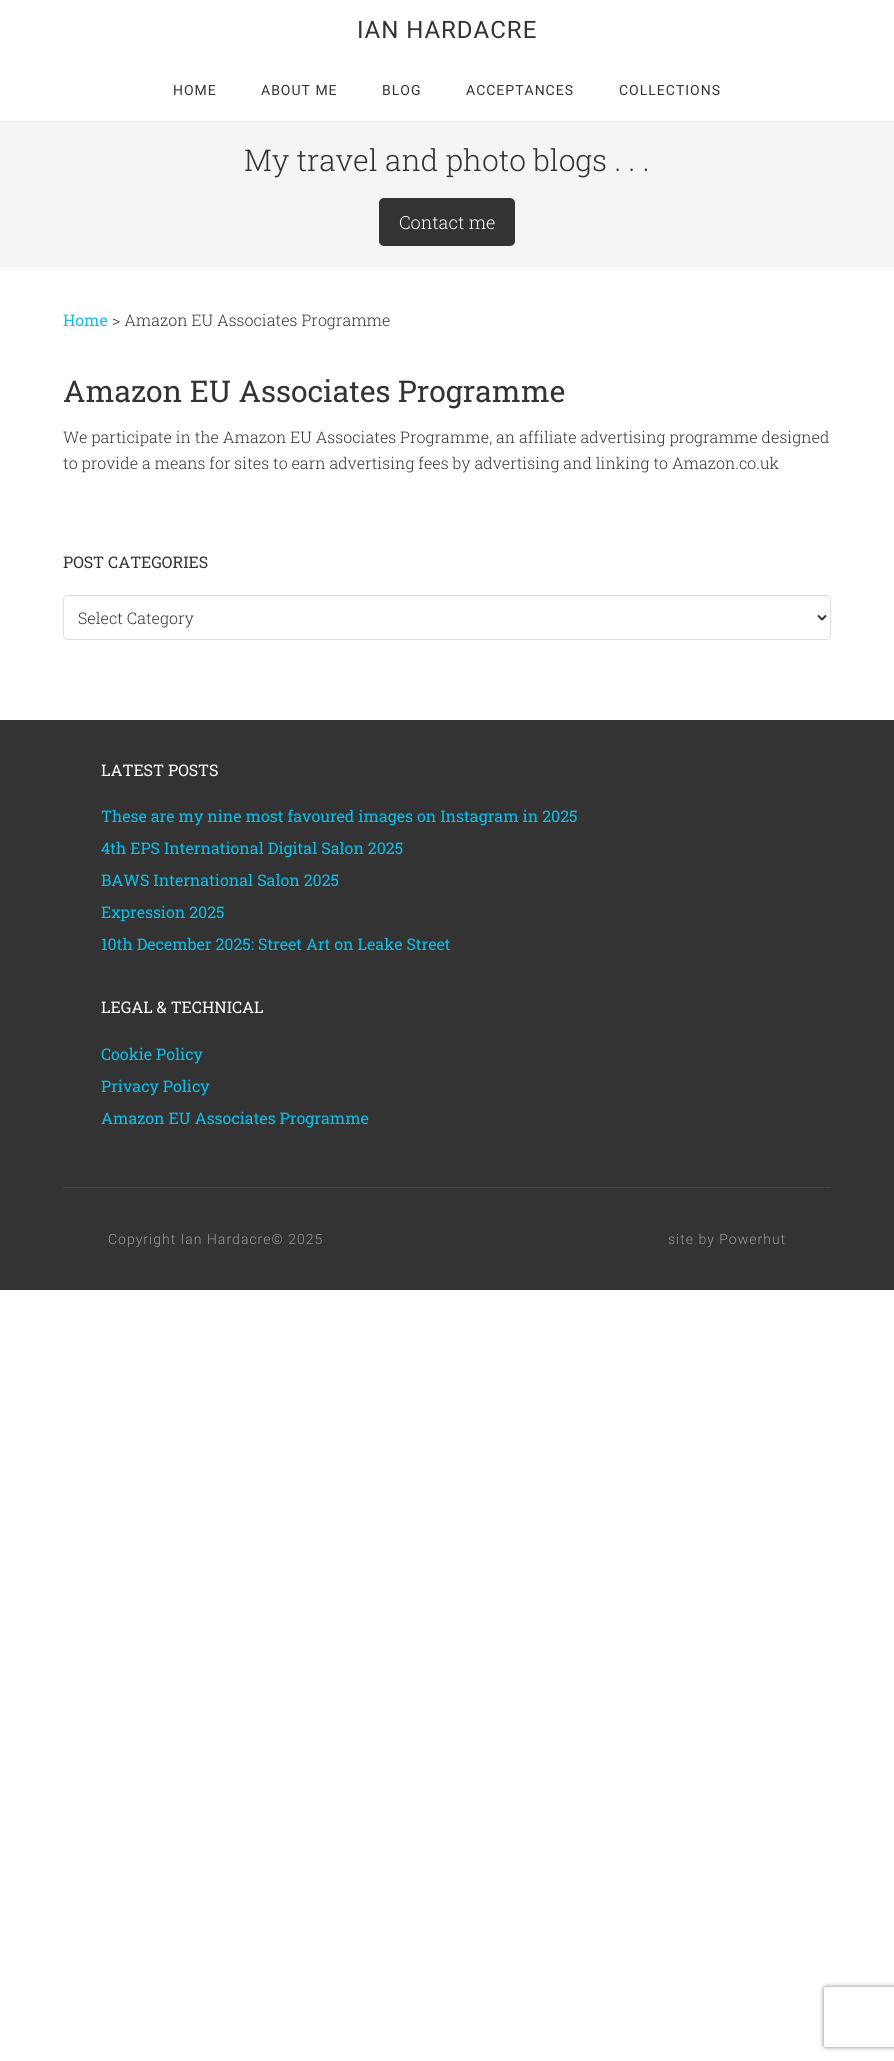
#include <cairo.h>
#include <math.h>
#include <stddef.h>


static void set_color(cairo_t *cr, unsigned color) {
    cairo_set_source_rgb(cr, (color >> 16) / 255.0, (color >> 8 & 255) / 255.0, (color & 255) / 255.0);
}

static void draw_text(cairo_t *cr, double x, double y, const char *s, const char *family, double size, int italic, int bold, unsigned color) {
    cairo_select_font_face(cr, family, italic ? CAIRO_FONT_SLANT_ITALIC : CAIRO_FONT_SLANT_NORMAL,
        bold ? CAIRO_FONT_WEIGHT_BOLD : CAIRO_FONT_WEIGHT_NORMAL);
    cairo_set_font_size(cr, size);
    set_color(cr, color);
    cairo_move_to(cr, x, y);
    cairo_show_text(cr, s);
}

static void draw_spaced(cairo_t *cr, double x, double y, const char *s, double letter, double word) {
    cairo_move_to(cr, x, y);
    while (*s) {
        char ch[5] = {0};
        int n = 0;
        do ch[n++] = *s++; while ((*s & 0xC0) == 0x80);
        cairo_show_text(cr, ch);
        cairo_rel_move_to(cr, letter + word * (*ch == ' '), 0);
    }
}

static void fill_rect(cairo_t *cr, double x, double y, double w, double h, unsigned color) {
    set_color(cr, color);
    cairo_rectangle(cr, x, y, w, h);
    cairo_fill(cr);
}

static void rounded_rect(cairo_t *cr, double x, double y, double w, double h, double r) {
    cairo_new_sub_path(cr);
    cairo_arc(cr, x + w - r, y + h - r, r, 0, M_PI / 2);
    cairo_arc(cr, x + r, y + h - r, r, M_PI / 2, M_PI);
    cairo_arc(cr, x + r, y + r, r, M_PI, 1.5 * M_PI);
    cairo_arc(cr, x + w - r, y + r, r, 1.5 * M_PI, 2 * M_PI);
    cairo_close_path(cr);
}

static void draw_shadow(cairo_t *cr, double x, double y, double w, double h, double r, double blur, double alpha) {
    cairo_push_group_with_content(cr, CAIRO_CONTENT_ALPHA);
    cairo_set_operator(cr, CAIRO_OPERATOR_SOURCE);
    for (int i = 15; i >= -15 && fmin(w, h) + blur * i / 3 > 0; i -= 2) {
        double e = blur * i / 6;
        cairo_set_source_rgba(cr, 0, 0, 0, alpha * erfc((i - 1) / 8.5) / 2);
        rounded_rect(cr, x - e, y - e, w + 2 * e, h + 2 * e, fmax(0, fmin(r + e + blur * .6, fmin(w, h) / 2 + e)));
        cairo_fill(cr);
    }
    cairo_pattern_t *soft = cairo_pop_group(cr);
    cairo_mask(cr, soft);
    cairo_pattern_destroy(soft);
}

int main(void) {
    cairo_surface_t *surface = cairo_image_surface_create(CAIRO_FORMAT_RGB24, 894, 2061);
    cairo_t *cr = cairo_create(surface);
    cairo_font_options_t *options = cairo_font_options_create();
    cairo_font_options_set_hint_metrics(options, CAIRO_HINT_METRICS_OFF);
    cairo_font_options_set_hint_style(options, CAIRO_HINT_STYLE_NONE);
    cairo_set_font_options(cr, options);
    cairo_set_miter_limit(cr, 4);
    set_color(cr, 0xFFFFFF);
    cairo_paint(cr);
    fill_rect(cr, 0, 121, 894, 1, 0xEEEEEE);
    cairo_select_font_face(cr, "Roboto", CAIRO_FONT_SLANT_NORMAL, CAIRO_FONT_WEIGHT_NORMAL);
    cairo_set_font_size(cr, 24);
    set_color(cr, 0x333333);
    draw_spaced(cr, 357, 38, "IAN HARDACRE", 1, 0);
    cairo_set_font_size(cr, 14);
    draw_spaced(cr, 173, 95, "HOME", 1, 0);
    draw_spaced(cr, 261, 95, "ABOUT ME", 1, 0);
    draw_spaced(cr, 382, 95, "BLOG", 1, 0);
    draw_spaced(cr, 466, 95, "ACCEPTANCES", 1, 0);
    draw_spaced(cr, 619, 95, "COLLECTIONS", 1, 0);
    fill_rect(cr, 0, 122, 894, 144, 0xF5F5F5);
    fill_rect(cr, 0, 266, 894, 1, 0xEEEEEE);
    draw_text(cr, 244, 171, "My travel and photo blogs . . .", "Roboto Slab Light", 30, 0, 0, 0x333333);
    rounded_rect(cr, 379, 198, 136, 48, 5);
    cairo_fill(cr);
    draw_text(cr, 399, 229, "Contact me", "Roboto Slab Light", 18, 0, 0, 0xFFFFFF);
    draw_text(cr, 63, 326, "Home", "Roboto Slab", 16, 0, 0, 0x0EBFE9);
    draw_text(cr, 112, 326, "> Amazon EU Associates Programme", "Roboto Slab Light", 16, 0, 0, 0x333333);
    draw_text(cr, 63, 402, "Amazon EU Associates Programme", "Roboto Slab", 30, 0, 0, 0x333333);
    draw_text(cr, 63, 443, "We participate in the Amazon EU Associates Programme, an affiliate advertising programme designed", "Roboto Slab Light", 16, 0, 0, 0x333333);
    draw_text(cr, 63, 469, "to provide a means for sites to earn advertising fees by advertising and linking to Amazon.co.uk", "Roboto Slab Light", 16, 0, 0, 0x333333);
    draw_text(cr, 63, 568, "POST CATEGORIES", "Roboto Slab", 16, 0, 0, 0x333333);
    rounded_rect(cr, 63.5, 595.5, 767, 44, 4.5);
    set_color(cr, 0xDDDDDD);
    cairo_set_line_width(cr, 1);
    cairo_stroke(cr);
    cairo_new_path(cr);
    cairo_move_to(cr, 818, 615.5);
    cairo_line_to(cr, 822, 619.5);
    cairo_line_to(cr, 826, 615.5);
    set_color(cr, 0x333333);
    cairo_set_line_width(cr, 2);
    cairo_stroke(cr);
    draw_text(cr, 78, 624, "Select Category", "Roboto Slab Light", 16, 0, 0, 0x333333);
    fill_rect(cr, 0, 720, 894, 570, 0x333333);
    fill_rect(cr, 63, 1187, 768, 1, 0x444444);
    draw_text(cr, 101, 776, "LATEST POSTS", "Roboto Slab", 16, 0, 0, 0xFFFFFF);
    draw_text(cr, 101, 822, "These are my nine most favoured images on Instagram in 2025", "Roboto Slab", 16, 0, 0, 0x0EBFE9);
    draw_text(cr, 101, 854, "4th EPS International Digital Salon 2025", "Roboto Slab", 16, 0, 0, 0x0EBFE9);
    draw_text(cr, 101, 886, "BAWS International Salon 2025", "Roboto Slab", 16, 0, 0, 0x0EBFE9);
    draw_text(cr, 101, 918, "Expression 2025", "Roboto Slab", 16, 0, 0, 0x0EBFE9);
    draw_text(cr, 101, 950, "10th December 2025: Street Art on Leake Street", "Roboto Slab", 16, 0, 0, 0x0EBFE9);
    draw_text(cr, 101, 1013, "LEGAL & TECHNICAL", "Roboto Slab", 16, 0, 0, 0xFFFFFF);
    draw_text(cr, 101, 1060, "Cookie Policy", "Roboto Slab", 16, 0, 0, 0x0EBFE9);
    draw_text(cr, 101, 1092, "Privacy Policy", "Roboto Slab", 16, 0, 0, 0x0EBFE9);
    draw_text(cr, 101, 1124, "Amazon EU Associates Programme", "Roboto Slab", 16, 0, 0, 0x0EBFE9);
    cairo_select_font_face(cr, "Roboto Light", CAIRO_FONT_SLANT_NORMAL, CAIRO_FONT_WEIGHT_NORMAL);
    cairo_set_font_size(cr, 14);
    set_color(cr, 0x999999);
    draw_spaced(cr, 108, 1244, "Copyright Ian Hardacre© 2025", 1, 0);
    draw_spaced(cr, 668, 1244, "site by Powerhut", 1, 0);
    cairo_save(cr);
    cairo_set_fill_rule(cr, CAIRO_FILL_RULE_EVEN_ODD);
    cairo_new_path(cr);
    cairo_move_to(cr, 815, 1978);
    cairo_line_to(cr, 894, 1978);
    cairo_line_to(cr, 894, 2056);
    cairo_line_to(cr, 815, 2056);
    cairo_close_path(cr);
    cairo_move_to(cr, 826, 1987);
    cairo_line_to(cr, 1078, 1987);
    cairo_curve_to(cr, 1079, 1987, 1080, 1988, 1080, 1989);
    cairo_line_to(cr, 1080, 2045);
    cairo_curve_to(cr, 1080, 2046, 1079, 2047, 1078, 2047);
    cairo_line_to(cr, 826, 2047);
    cairo_curve_to(cr, 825, 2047, 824, 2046, 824, 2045);
    cairo_line_to(cr, 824, 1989);
    cairo_curve_to(cr, 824, 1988, 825, 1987, 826, 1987);
    cairo_close_path(cr);
    cairo_clip(cr);
    set_color(cr, 0x808080);
    draw_shadow(cr, 824, 1987, 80, 60, 2, 2.5, 1);
    cairo_restore(cr);
    cairo_surface_write_to_png(surface, "output.png");
    cairo_font_options_destroy(options);
    cairo_destroy(cr);
    cairo_surface_destroy(surface);
    return 0;
}
